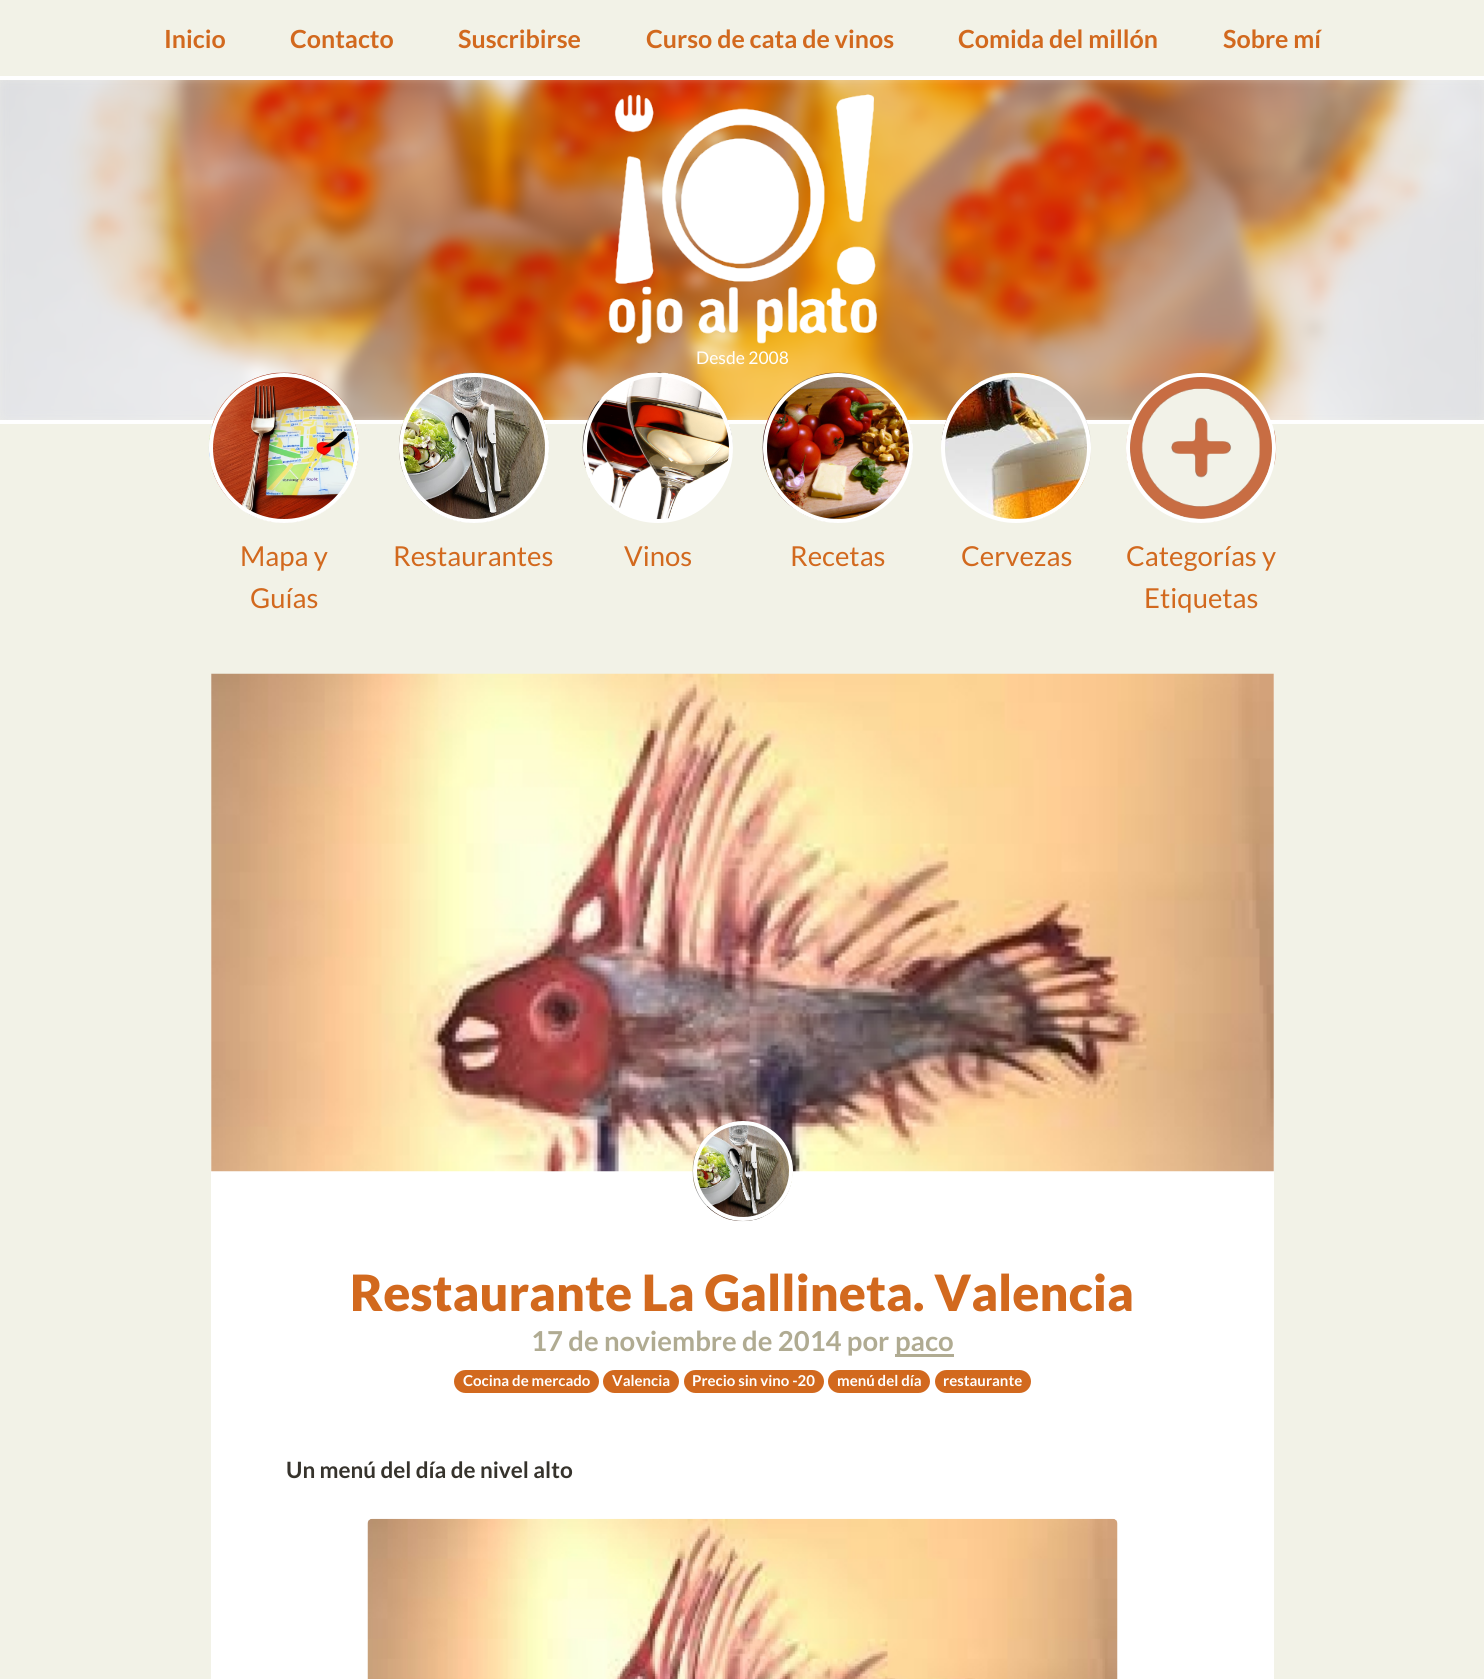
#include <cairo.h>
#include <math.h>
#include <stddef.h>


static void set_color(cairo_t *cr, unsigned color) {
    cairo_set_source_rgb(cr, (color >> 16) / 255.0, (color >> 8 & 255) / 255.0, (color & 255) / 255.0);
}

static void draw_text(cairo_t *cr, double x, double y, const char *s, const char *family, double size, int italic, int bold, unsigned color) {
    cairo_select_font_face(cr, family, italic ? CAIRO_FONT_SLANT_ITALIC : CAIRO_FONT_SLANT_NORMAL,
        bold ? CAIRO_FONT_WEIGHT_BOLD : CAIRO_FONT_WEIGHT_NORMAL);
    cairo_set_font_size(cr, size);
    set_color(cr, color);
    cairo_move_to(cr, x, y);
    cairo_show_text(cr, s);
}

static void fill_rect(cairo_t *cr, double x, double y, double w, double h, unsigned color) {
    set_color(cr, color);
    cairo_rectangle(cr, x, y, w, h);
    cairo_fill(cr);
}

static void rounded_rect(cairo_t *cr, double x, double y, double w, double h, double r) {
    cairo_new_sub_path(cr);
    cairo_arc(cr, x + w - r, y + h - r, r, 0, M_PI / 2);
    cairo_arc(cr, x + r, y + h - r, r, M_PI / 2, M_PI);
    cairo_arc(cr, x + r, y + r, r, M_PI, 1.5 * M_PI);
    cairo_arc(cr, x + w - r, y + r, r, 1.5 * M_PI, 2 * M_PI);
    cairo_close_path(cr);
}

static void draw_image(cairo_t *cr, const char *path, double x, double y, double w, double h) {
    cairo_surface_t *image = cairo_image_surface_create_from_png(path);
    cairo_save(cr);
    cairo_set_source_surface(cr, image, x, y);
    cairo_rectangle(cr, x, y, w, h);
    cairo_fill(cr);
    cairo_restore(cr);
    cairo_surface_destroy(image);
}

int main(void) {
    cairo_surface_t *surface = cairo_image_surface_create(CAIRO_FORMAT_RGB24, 1484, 1679);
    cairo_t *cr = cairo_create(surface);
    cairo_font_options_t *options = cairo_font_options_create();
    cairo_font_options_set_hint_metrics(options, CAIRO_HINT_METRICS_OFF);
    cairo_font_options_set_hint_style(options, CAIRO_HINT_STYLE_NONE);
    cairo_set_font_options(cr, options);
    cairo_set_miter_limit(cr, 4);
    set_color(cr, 0xF2F2E7);
    cairo_paint(cr);
    fill_rect(cr, 0, 76, 1484, 4, 0xFFFFFF);
    draw_text(cr, 164, 48, "Inicio", "Lato", 25, 0, 1, 0xD2691E);
    draw_text(cr, 290, 48, "Contacto", "Lato", 25, 0, 1, 0xD2691E);
    draw_text(cr, 458, 48, "Suscribirse", "Lato", 25, 0, 1, 0xD2691E);
    draw_text(cr, 646, 48, "Curso de cata de vinos", "Lato", 25, 0, 1, 0xD2691E);
    draw_text(cr, 958, 48, "Comida del millón", "Lato", 25, 0, 1, 0xD2691E);
    draw_text(cr, 1223, 48, "Sobre mí", "Lato", 25, 0, 1, 0xD2691E);
    fill_rect(cr, 0, 420, 1484, 4, 0xFFFFFF);
    draw_image(cr, "assets/img1.png", 0, 80, 1484, 340);
    draw_image(cr, "assets/img2.png", 608, 94, 269, 251);
    draw_text(cr, 696, 364, "Desde 2008", "Lato", 17.5, 0, 0, 0xFFFFFF);
    draw_image(cr, "assets/img3.png", 208, 372, 151, 151);
    cairo_arc(cr, 284, 448, 73, 0, 2 * M_PI);
    cairo_set_line_width(cr, 4);
    cairo_stroke(cr);
    draw_text(cr, 240, 566, "Mapa y", "Lato", 27.5, 0, 0, 0xD2691E);
    draw_text(cr, 250, 608, "Guías", "Lato", 27.5, 0, 0, 0xD2691E);
    draw_image(cr, "assets/img4.png", 398, 372, 151, 151);
    cairo_arc(cr, 474, 448, 73, 0, 2 * M_PI);
    set_color(cr, 0xFFFFFF);
    cairo_stroke(cr);
    draw_text(cr, 393, 566, "Restaurantes", "Lato", 27.5, 0, 0, 0xD2691E);
    draw_image(cr, "assets/img5.png", 582, 372, 151, 151);
    cairo_arc(cr, 658, 448, 73, 0, 2 * M_PI);
    set_color(cr, 0xFFFFFF);
    cairo_stroke(cr);
    draw_text(cr, 624, 566, "Vinos", "Lato", 27.5, 0, 0, 0xD2691E);
    draw_image(cr, "assets/img6.png", 762, 372, 151, 151);
    cairo_arc(cr, 838, 448, 73, 0, 2 * M_PI);
    set_color(cr, 0xFFFFFF);
    cairo_stroke(cr);
    draw_text(cr, 790, 566, "Recetas", "Lato", 27.5, 0, 0, 0xD2691E);
    draw_image(cr, "assets/img7.png", 941, 372, 150, 151);
    cairo_arc(cr, 1016, 448, 73, 0, 2 * M_PI);
    set_color(cr, 0xFFFFFF);
    cairo_stroke(cr);
    draw_text(cr, 961, 566, "Cervezas", "Lato", 27.5, 0, 0, 0xD2691E);
    draw_image(cr, "assets/img8.png", 1126, 372, 151, 151);
    cairo_arc(cr, 1201, 448, 73, 0, 2 * M_PI);
    set_color(cr, 0xFFFFFF);
    cairo_stroke(cr);
    draw_text(cr, 1126, 566, "Categorías y", "Lato", 27.5, 0, 0, 0xD2691E);
    draw_text(cr, 1144, 608, "Etiquetas", "Lato", 27.5, 0, 0, 0xD2691E);
    fill_rect(cr, 211, 674, 1063, 1005, 0xFFFFFF);
    draw_image(cr, "assets/img9.png", 211, 673, 1063, 499);
    draw_image(cr, "assets/img10.png", 692, 1121, 101, 101);
    cairo_arc(cr, 743, 1171, 48, 0, 2 * M_PI);
    cairo_stroke(cr);
    draw_text(cr, 350, 1311, "Restaurante La Gallineta. Valencia", "Lato Black", 50, 0, 0, 0xD2691E);
    draw_text(cr, 531, 1351, "17 de noviembre de 2014 por", "Lato", 27.5, 0, 1, 0xB0AB92);
    fill_rect(cr, 895, 1354, 59, 3, 0xB0AB92);
    draw_text(cr, 895, 1351, "paco", "Lato", 27.5, 0, 1, 0xB0AB92);
    set_color(cr, 0xD2691E);
    rounded_rect(cr, 454, 1370, 145, 23, 11.5);
    cairo_fill(cr);
    draw_text(cr, 463, 1386, "Cocina de mercado", "Lato", 15, 0, 1, 0xFFFFFF);
    set_color(cr, 0xD2691E);
    rounded_rect(cr, 603, 1370, 76, 23, 11.5);
    cairo_fill(cr);
    draw_text(cr, 612, 1386, "Valencia", "Lato", 15, 0, 1, 0xFFFFFF);
    set_color(cr, 0xD2691E);
    rounded_rect(cr, 684, 1370, 140, 23, 11.5);
    cairo_fill(cr);
    draw_text(cr, 692, 1386, "Precio sin vino -20", "Lato", 15, 0, 1, 0xFFFFFF);
    set_color(cr, 0xD2691E);
    rounded_rect(cr, 828, 1370, 102, 23, 11.5);
    cairo_fill(cr);
    draw_text(cr, 837, 1386, "menú del día", "Lato", 15, 0, 1, 0xFFFFFF);
    set_color(cr, 0xD2691E);
    rounded_rect(cr, 935, 1370, 96, 23, 11.5);
    cairo_fill(cr);
    draw_text(cr, 943, 1386, "restaurante", "Lato", 15, 0, 1, 0xFFFFFF);
    draw_text(cr, 286, 1478, "Un menú del día de nivel alto", "Lato", 22.5, 0, 1, 0x36332C);
    draw_image(cr, "assets/img11.png", 367, 1518, 751, 161);
    cairo_surface_write_to_png(surface, "output.png");
    cairo_font_options_destroy(options);
    cairo_destroy(cr);
    cairo_surface_destroy(surface);
    return 0;
}
